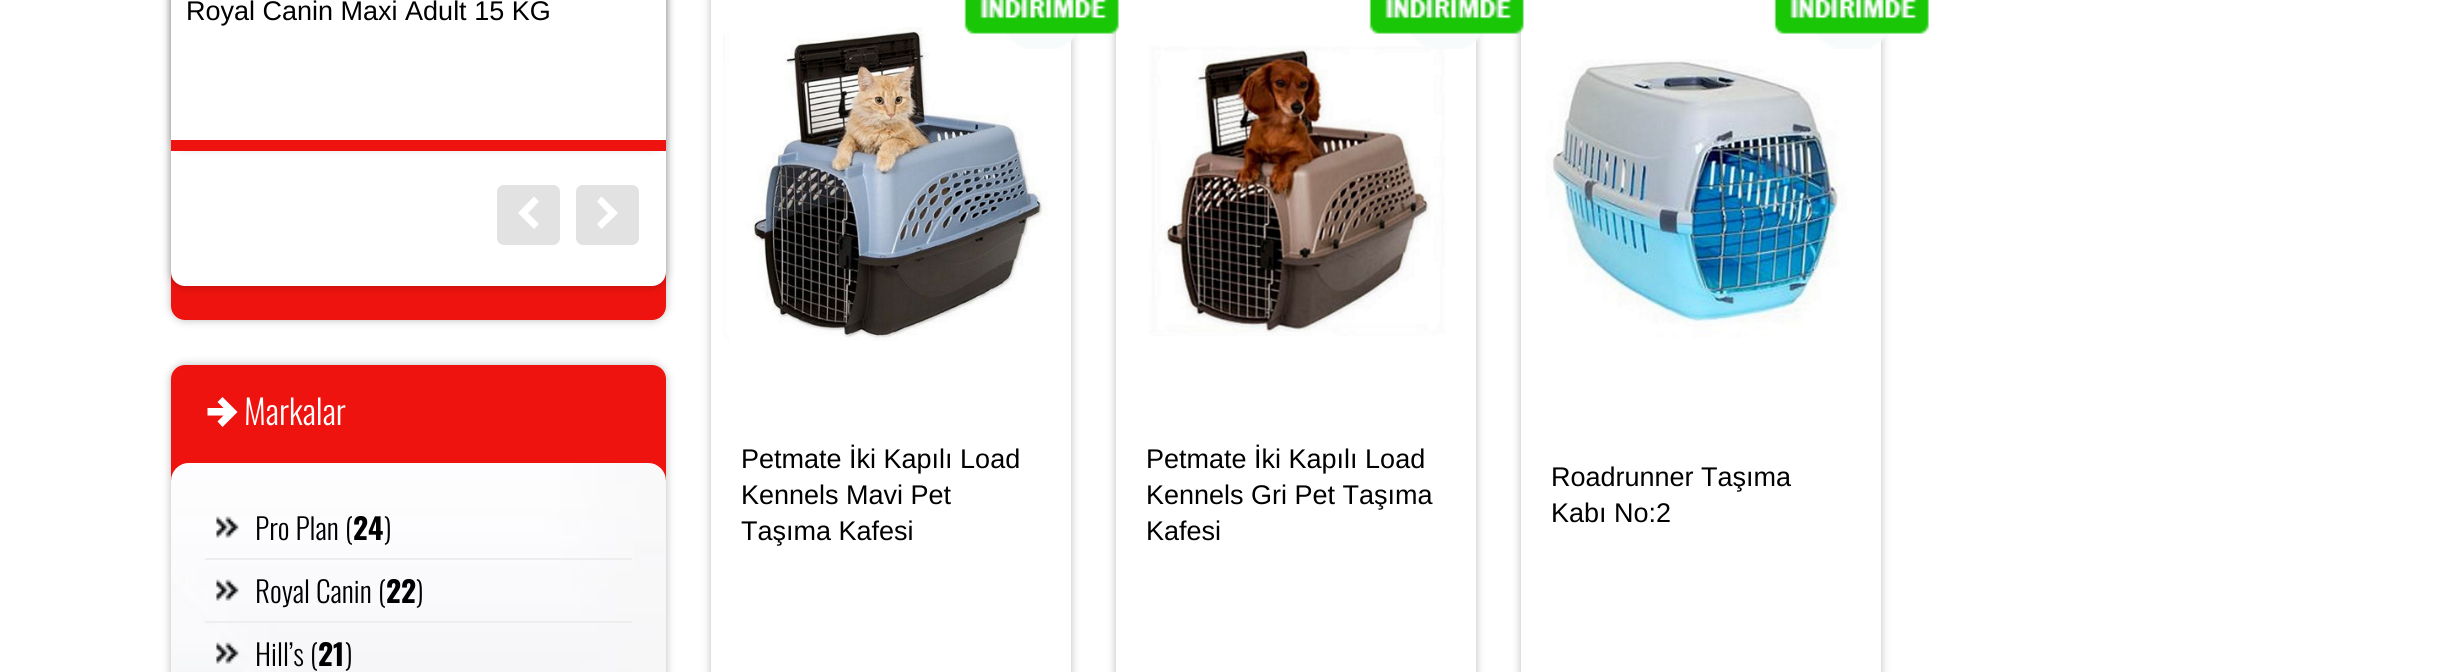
#include <cairo.h>
#include <math.h>
#include <stddef.h>


static void set_color(cairo_t *cr, unsigned color) {
    cairo_set_source_rgb(cr, (color >> 16) / 255.0, (color >> 8 & 255) / 255.0, (color & 255) / 255.0);
}

static void draw_text(cairo_t *cr, double x, double y, const char *s, const char *family, double size, int italic, int bold, unsigned color) {
    cairo_select_font_face(cr, family, italic ? CAIRO_FONT_SLANT_ITALIC : CAIRO_FONT_SLANT_NORMAL,
        bold ? CAIRO_FONT_WEIGHT_BOLD : CAIRO_FONT_WEIGHT_NORMAL);
    cairo_set_font_size(cr, size);
    set_color(cr, color);
    cairo_move_to(cr, x, y);
    cairo_show_text(cr, s);
}

static void fill_rect(cairo_t *cr, double x, double y, double w, double h, unsigned color) {
    set_color(cr, color);
    cairo_rectangle(cr, x, y, w, h);
    cairo_fill(cr);
}

static void rounded_rect(cairo_t *cr, double x, double y, double w, double h, double r) {
    cairo_new_sub_path(cr);
    cairo_arc(cr, x + w - r, y + h - r, r, 0, M_PI / 2);
    cairo_arc(cr, x + r, y + h - r, r, M_PI / 2, M_PI);
    cairo_arc(cr, x + r, y + r, r, M_PI, 1.5 * M_PI);
    cairo_arc(cr, x + w - r, y + r, r, 1.5 * M_PI, 2 * M_PI);
    cairo_close_path(cr);
}

static void draw_shadow(cairo_t *cr, double x, double y, double w, double h, double r, double blur, double alpha) {
    cairo_push_group_with_content(cr, CAIRO_CONTENT_ALPHA);
    cairo_set_operator(cr, CAIRO_OPERATOR_SOURCE);
    for (int i = 15; i >= -15 && fmin(w, h) + blur * i / 3 > 0; i -= 2) {
        double e = blur * i / 6;
        cairo_set_source_rgba(cr, 0, 0, 0, alpha * erfc((i - 1) / 8.5) / 2);
        rounded_rect(cr, x - e, y - e, w + 2 * e, h + 2 * e, fmax(0, fmin(r + e + blur * .6, fmin(w, h) / 2 + e)));
        cairo_fill(cr);
    }
    cairo_pattern_t *soft = cairo_pop_group(cr);
    cairo_mask(cr, soft);
    cairo_pattern_destroy(soft);
}

static void draw_image(cairo_t *cr, const char *path, double x, double y, double w, double h) {
    cairo_surface_t *image = cairo_image_surface_create_from_png(path);
    cairo_save(cr);
    cairo_set_source_surface(cr, image, x, y);
    cairo_rectangle(cr, x, y, w, h);
    cairo_fill(cr);
    cairo_restore(cr);
    cairo_surface_destroy(image);
}

int main(void) {
    cairo_surface_t *surface = cairo_image_surface_create(CAIRO_FORMAT_RGB24, 2454, 672);
    cairo_t *cr = cairo_create(surface);
    cairo_font_options_t *options = cairo_font_options_create();
    cairo_font_options_set_hint_metrics(options, CAIRO_HINT_METRICS_OFF);
    cairo_font_options_set_hint_style(options, CAIRO_HINT_STYLE_NONE);
    cairo_set_font_options(cr, options);
    cairo_set_miter_limit(cr, 4);
    set_color(cr, 0xFFFFFF);
    cairo_paint(cr);
    set_color(cr, 0x000000);
    draw_shadow(cr, 171, -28, 495, 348, 14, 4.5, 0.27);
    set_color(cr, 0xEE130E);
    rounded_rect(cr, 171, -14, 495, 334, 14);
    cairo_fill(cr);
    set_color(cr, 0x000000);
    draw_shadow(cr, 171, -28, 495, 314, 14, 4.5, 0.27);
    set_color(cr, 0xFFFFFF);
    rounded_rect(cr, 171, -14, 495, 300, 14);
    cairo_fill(cr);
    set_color(cr, 0x000000);
    draw_shadow(cr, 171, -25, 495, 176, 14, 3.5, 0.1);
    fill_rect(cr, 171, 0, 495, 140, 0xFFFFFF);
    fill_rect(cr, 171, 140, 495, 11, 0xEE130E);
    draw_text(cr, 186, 20, "Royal Canin Maxi Adult 15 KG", "Liberation Sans", 27, 0, 0, 0x000000);
    set_color(cr, 0xE2E2E2);
    rounded_rect(cr, 497, 185, 63, 60, 7);
    cairo_fill(cr);
    set_color(cr, 0xFFFFFF);
    cairo_new_path(cr);
    cairo_move_to(cr, 528, 213);
    cairo_line_to(cr, 539, 224);
    cairo_line_to(cr, 534, 229);
    cairo_line_to(cr, 518, 213);
    cairo_line_to(cr, 534, 196.5);
    cairo_line_to(cr, 539, 201.5);
    cairo_close_path(cr);
    cairo_fill(cr);
    set_color(cr, 0xE2E2E2);
    rounded_rect(cr, 576, 185, 63, 60, 7);
    cairo_fill(cr);
    set_color(cr, 0xFFFFFF);
    cairo_new_path(cr);
    cairo_move_to(cr, 601.5, 196.5);
    cairo_line_to(cr, 618, 213);
    cairo_line_to(cr, 601.5, 229);
    cairo_line_to(cr, 597, 224);
    cairo_line_to(cr, 608, 213);
    cairo_line_to(cr, 597, 201.5);
    cairo_close_path(cr);
    cairo_fill(cr);
    set_color(cr, 0x000000);
    draw_shadow(cr, 171, 365, 495, 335, 14, 4.5, 0.27);
    set_color(cr, 0xEE130E);
    rounded_rect(cr, 171, 365, 495, 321, 14);
    cairo_fill(cr);
    set_color(cr, 0xFFFFFF);
    cairo_new_path(cr);
    cairo_move_to(cr, 222.5, 397);
    cairo_line_to(cr, 237.5, 412);
    cairo_line_to(cr, 222.5, 427);
    cairo_line_to(cr, 217.5, 421.5);
    cairo_line_to(cr, 223.5, 415.5);
    cairo_line_to(cr, 207.5, 415.5);
    cairo_line_to(cr, 207.5, 408);
    cairo_line_to(cr, 223.5, 408);
    cairo_line_to(cr, 217.5, 402);
    cairo_close_path(cr);
    cairo_fill(cr);
    draw_text(cr, 244, 425, "Markalar", "Oswald Light", 34, 0, 0, 0xFFFFFF);
    draw_image(cr, "assets/img1.png", 171, 463, 495, 209);
    draw_image(cr, "assets/img2.png", 216, 516, 23, 22);
    fill_rect(cr, 205, 558, 427, 2, 0xEEEEEE);
    draw_text(cr, 255, 540, "Pro Plan (", "Oswald Light", 29.25, 0, 0, 0x000000);
    draw_text(cr, 353, 540, "24", "Oswald", 29.25, 0, 1, 0x000000);
    draw_text(cr, 384, 540, ")", "Oswald Light", 29.25, 0, 0, 0x000000);
    draw_image(cr, "assets/img3.png", 216, 579, 23, 22);
    fill_rect(cr, 205, 621, 427, 2, 0xEEEEEE);
    draw_text(cr, 255, 603, "Royal Canin (", "Oswald Light", 29.25, 0, 0, 0x000000);
    draw_text(cr, 386, 603, "22", "Oswald", 29.25, 0, 1, 0x000000);
    draw_text(cr, 416, 603, ")", "Oswald Light", 29.25, 0, 0, 0x000000);
    draw_image(cr, "assets/img4.png", 216, 642, 23, 22);
    draw_text(cr, 255, 666, "Hill’s (", "Oswald Light", 29.25, 0, 0, 0x000000);
    draw_text(cr, 318, 666, "21", "Oswald", 29.25, 0, 1, 0x000000);
    draw_text(cr, 345, 666, ")", "Oswald Light", 29.25, 0, 0, 0x000000);
    cairo_save(cr);
    cairo_set_fill_rule(cr, CAIRO_FILL_RULE_EVEN_ODD);
    cairo_new_path(cr);
    cairo_move_to(cr, 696, 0);
    cairo_line_to(cr, 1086, 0);
    cairo_line_to(cr, 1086, 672);
    cairo_line_to(cr, 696, 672);
    cairo_close_path(cr);
    cairo_move_to(cr, 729, -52);
    cairo_line_to(cr, 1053, -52);
    cairo_curve_to(cr, 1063, -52, 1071, -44, 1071, -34);
    cairo_line_to(cr, 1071, 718);
    cairo_curve_to(cr, 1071, 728, 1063, 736, 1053, 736);
    cairo_line_to(cr, 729, 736);
    cairo_curve_to(cr, 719, 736, 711, 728, 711, 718);
    cairo_line_to(cr, 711, -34);
    cairo_curve_to(cr, 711, -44, 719, -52, 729, -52);
    cairo_close_path(cr);
    cairo_clip(cr);
    set_color(cr, 0x000000);
    draw_shadow(cr, 711, -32, 360, 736, 18, 4.5, 0.27);
    cairo_restore(cr);
    draw_image(cr, "assets/img6.png", 723, 27, 325, 314);
    cairo_save(cr);
    cairo_set_fill_rule(cr, CAIRO_FILL_RULE_EVEN_ODD);
    cairo_new_path(cr);
    cairo_move_to(cr, 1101, 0);
    cairo_line_to(cr, 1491, 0);
    cairo_line_to(cr, 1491, 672);
    cairo_line_to(cr, 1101, 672);
    cairo_close_path(cr);
    cairo_move_to(cr, 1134, -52);
    cairo_line_to(cr, 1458, -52);
    cairo_curve_to(cr, 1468, -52, 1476, -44, 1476, -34);
    cairo_line_to(cr, 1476, 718);
    cairo_curve_to(cr, 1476, 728, 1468, 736, 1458, 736);
    cairo_line_to(cr, 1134, 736);
    cairo_curve_to(cr, 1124, 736, 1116, 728, 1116, 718);
    cairo_line_to(cr, 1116, -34);
    cairo_curve_to(cr, 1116, -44, 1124, -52, 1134, -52);
    cairo_close_path(cr);
    cairo_clip(cr);
    set_color(cr, 0x000000);
    draw_shadow(cr, 1116, -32, 360, 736, 18, 4.5, 0.27);
    cairo_restore(cr);
    draw_image(cr, "assets/img5.png", 964, 0, 155, 49);
    draw_text(cr, 741, 468, "Petmate İki Kapılı Load", "Liberation Sans", 27, 0, 0, 0x000000);
    draw_text(cr, 741, 504, "Kennels Mavi Pet", "Liberation Sans", 27, 0, 0, 0x000000);
    draw_text(cr, 741, 540, "Taşıma Kafesi", "Liberation Sans", 27, 0, 0, 0x000000);
    draw_image(cr, "assets/img8.png", 1149, 45, 297, 291);
    cairo_save(cr);
    cairo_set_fill_rule(cr, CAIRO_FILL_RULE_EVEN_ODD);
    cairo_new_path(cr);
    cairo_move_to(cr, 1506, 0);
    cairo_line_to(cr, 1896, 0);
    cairo_line_to(cr, 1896, 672);
    cairo_line_to(cr, 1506, 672);
    cairo_close_path(cr);
    cairo_move_to(cr, 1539, -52);
    cairo_line_to(cr, 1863, -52);
    cairo_curve_to(cr, 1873, -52, 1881, -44, 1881, -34);
    cairo_line_to(cr, 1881, 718);
    cairo_curve_to(cr, 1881, 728, 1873, 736, 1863, 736);
    cairo_line_to(cr, 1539, 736);
    cairo_curve_to(cr, 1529, 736, 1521, 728, 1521, 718);
    cairo_line_to(cr, 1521, -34);
    cairo_curve_to(cr, 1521, -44, 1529, -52, 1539, -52);
    cairo_close_path(cr);
    cairo_clip(cr);
    set_color(cr, 0x000000);
    draw_shadow(cr, 1521, -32, 360, 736, 18, 4.5, 0.27);
    cairo_restore(cr);
    draw_image(cr, "assets/img7.png", 1369, 0, 155, 49);
    draw_text(cr, 1146, 468, "Petmate İki Kapılı Load", "Liberation Sans", 27, 0, 0, 0x000000);
    draw_text(cr, 1146, 504, "Kennels Gri Pet Taşıma", "Liberation Sans", 27, 0, 0, 0x000000);
    draw_text(cr, 1146, 540, "Kafesi", "Liberation Sans", 27, 0, 0, 0x000000);
    draw_image(cr, "assets/img9.png", 1774, 0, 155, 49);
    draw_image(cr, "assets/img10.png", 1545, 59, 302, 279);
    draw_text(cr, 1551, 486, "Roadrunner Taşıma", "Liberation Sans", 27, 0, 0, 0x000000);
    draw_text(cr, 1551, 522, "Kabı No:2", "Liberation Sans", 27, 0, 0, 0x000000);
    cairo_surface_write_to_png(surface, "output.png");
    cairo_font_options_destroy(options);
    cairo_destroy(cr);
    cairo_surface_destroy(surface);
    return 0;
}
